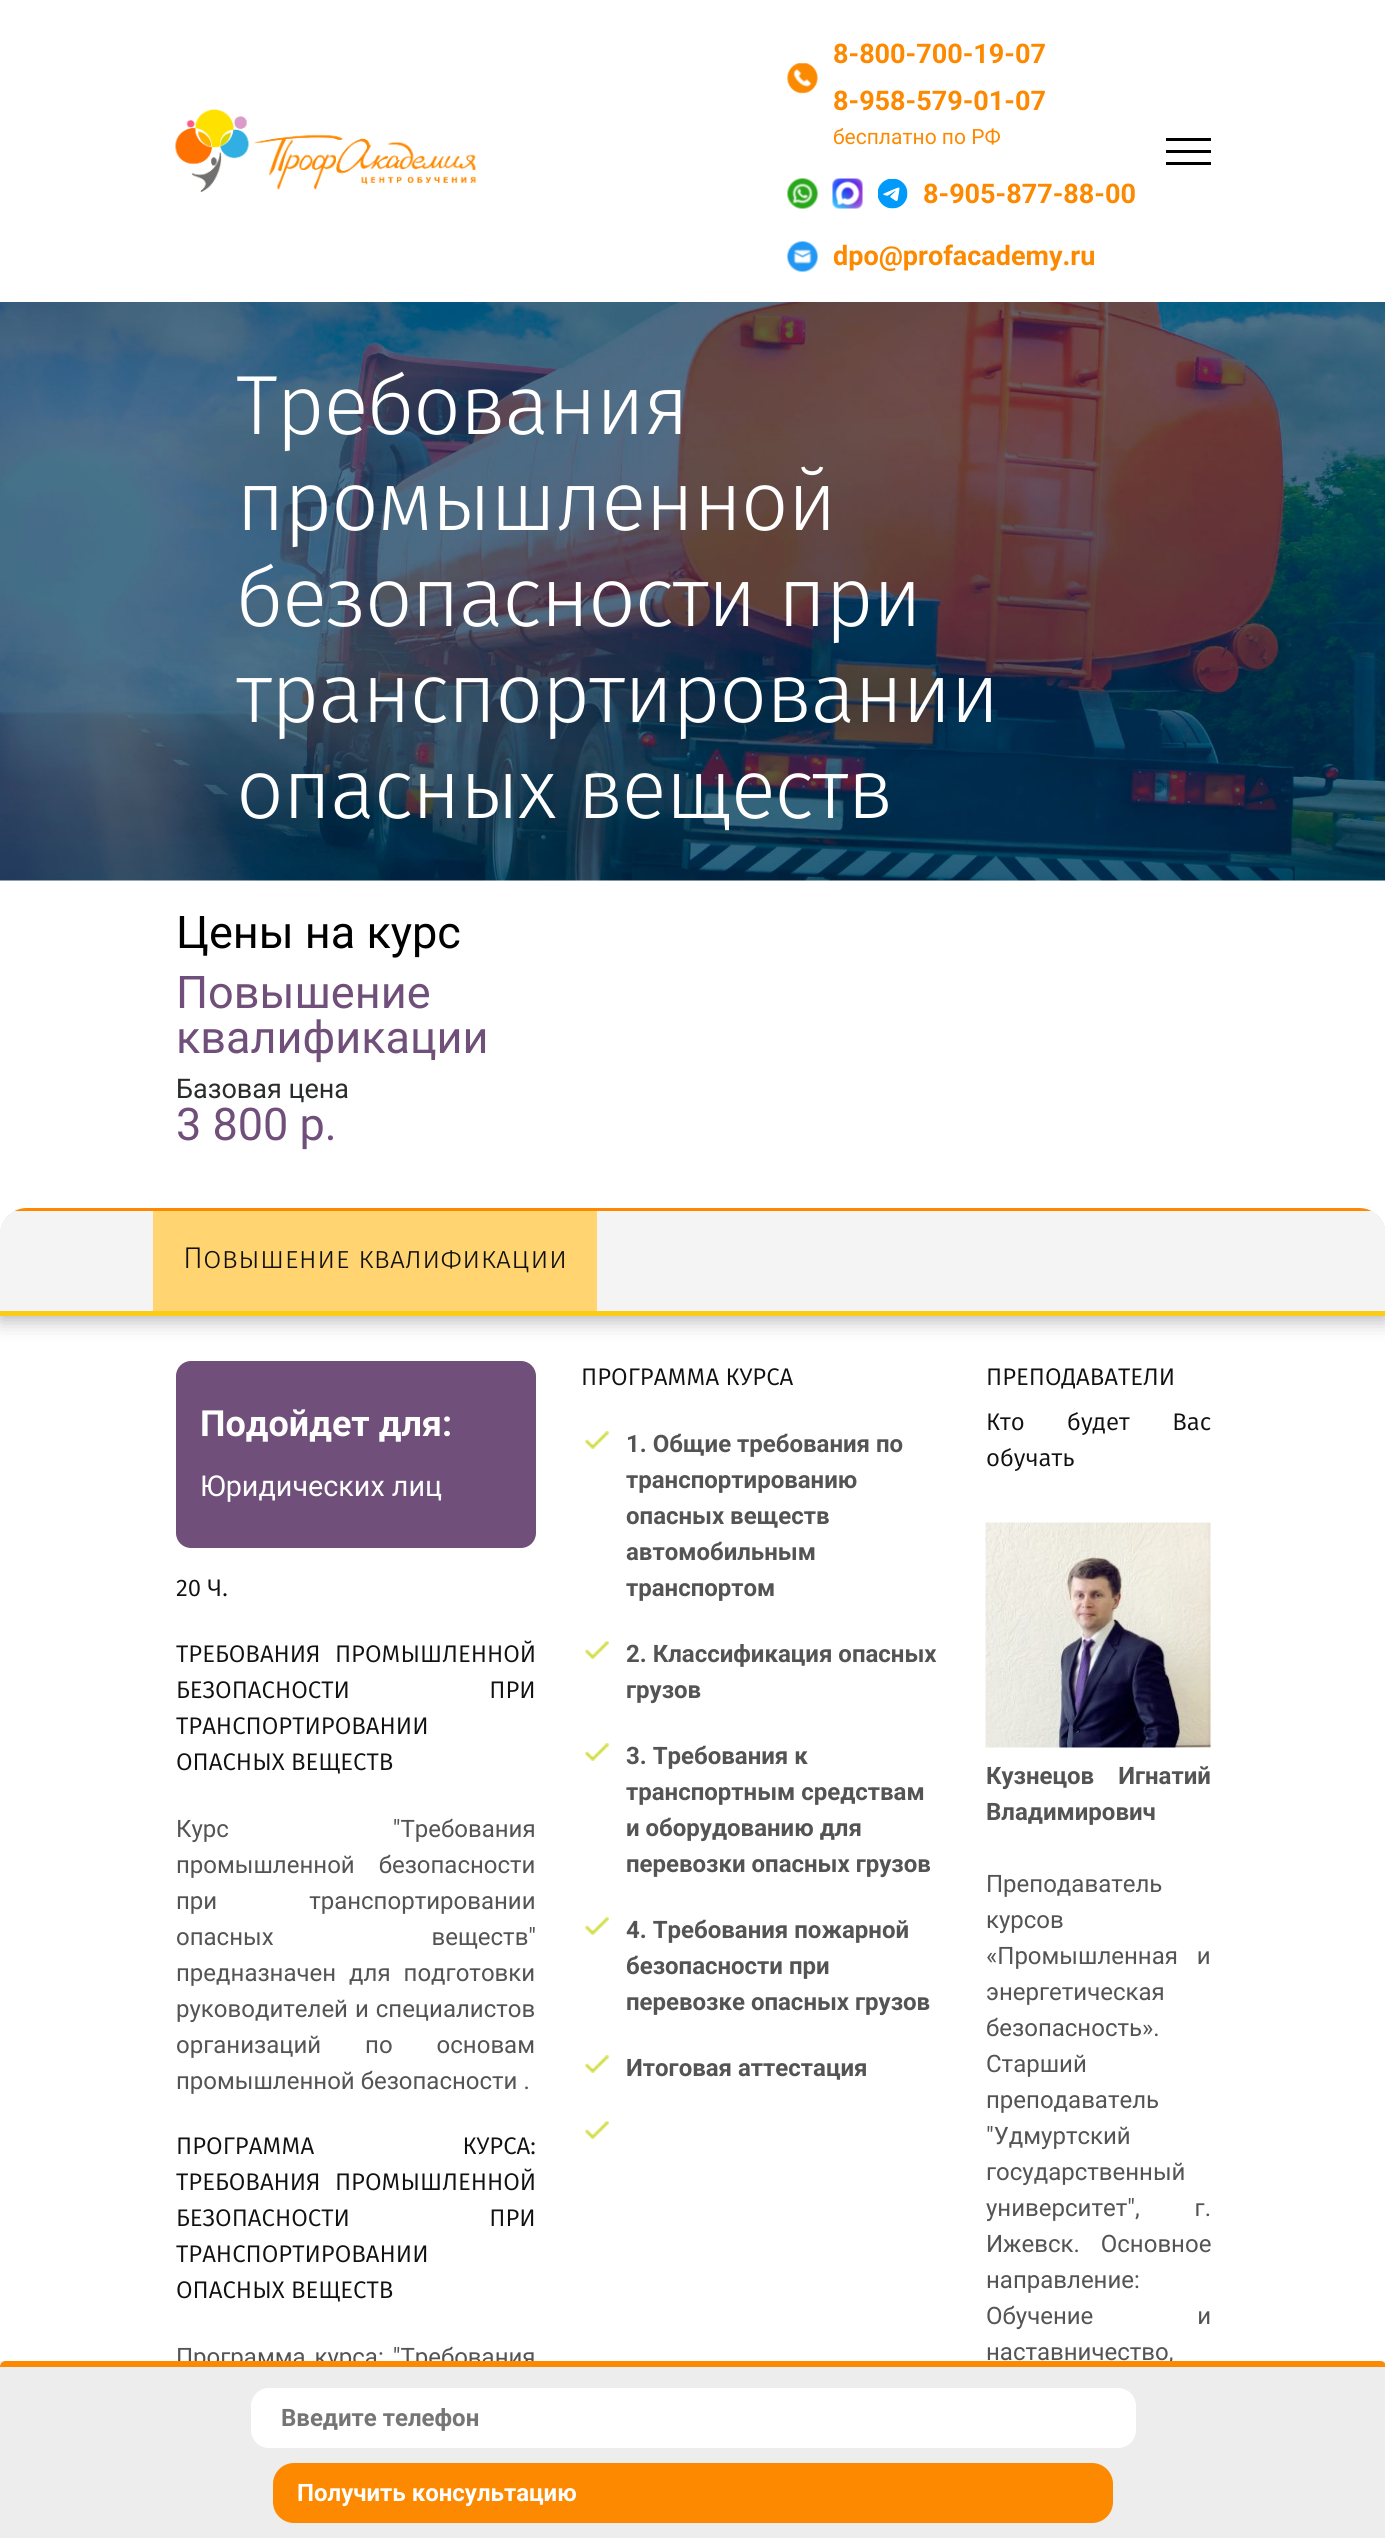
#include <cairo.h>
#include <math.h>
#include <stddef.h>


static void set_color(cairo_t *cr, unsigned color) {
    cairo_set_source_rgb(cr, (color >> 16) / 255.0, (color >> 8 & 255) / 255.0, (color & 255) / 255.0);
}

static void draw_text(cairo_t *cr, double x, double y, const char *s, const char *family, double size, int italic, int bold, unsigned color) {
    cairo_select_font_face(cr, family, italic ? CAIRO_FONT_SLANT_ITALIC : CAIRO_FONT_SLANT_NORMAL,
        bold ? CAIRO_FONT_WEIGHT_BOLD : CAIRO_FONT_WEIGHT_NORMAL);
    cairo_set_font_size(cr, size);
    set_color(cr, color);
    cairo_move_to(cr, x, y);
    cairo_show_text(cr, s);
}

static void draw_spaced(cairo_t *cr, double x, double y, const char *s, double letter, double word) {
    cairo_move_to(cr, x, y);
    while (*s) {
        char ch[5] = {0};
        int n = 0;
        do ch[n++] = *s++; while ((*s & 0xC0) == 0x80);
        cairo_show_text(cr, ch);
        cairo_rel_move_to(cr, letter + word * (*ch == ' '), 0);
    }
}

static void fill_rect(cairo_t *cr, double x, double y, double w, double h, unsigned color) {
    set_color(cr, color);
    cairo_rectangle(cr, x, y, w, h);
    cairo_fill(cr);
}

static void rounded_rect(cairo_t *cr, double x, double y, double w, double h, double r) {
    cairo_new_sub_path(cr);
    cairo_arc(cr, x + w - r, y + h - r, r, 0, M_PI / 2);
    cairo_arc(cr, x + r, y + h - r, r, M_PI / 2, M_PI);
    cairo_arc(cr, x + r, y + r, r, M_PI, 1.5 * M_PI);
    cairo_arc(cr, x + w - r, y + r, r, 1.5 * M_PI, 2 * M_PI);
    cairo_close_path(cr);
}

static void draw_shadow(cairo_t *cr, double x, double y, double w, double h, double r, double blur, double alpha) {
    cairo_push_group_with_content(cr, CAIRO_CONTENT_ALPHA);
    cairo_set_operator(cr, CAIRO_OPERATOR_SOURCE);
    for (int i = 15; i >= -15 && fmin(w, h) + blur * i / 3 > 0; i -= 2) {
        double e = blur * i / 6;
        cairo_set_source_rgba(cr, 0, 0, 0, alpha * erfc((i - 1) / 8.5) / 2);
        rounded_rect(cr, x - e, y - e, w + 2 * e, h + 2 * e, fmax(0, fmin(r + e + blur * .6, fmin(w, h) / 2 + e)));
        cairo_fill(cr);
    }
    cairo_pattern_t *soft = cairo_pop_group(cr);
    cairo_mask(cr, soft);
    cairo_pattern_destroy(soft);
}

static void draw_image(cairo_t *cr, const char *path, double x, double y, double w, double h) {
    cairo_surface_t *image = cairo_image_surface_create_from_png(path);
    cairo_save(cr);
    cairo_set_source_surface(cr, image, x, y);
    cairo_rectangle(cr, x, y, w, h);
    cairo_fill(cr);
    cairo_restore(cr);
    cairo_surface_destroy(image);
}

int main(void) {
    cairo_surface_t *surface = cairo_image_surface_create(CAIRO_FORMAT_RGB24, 1385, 2538);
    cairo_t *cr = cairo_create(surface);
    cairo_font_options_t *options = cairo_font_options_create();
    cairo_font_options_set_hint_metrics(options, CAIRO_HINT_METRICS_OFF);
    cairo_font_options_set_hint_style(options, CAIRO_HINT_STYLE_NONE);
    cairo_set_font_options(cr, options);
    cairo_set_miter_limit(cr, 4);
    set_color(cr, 0xFFFFFF);
    cairo_paint(cr);
    draw_image(cr, "assets/img1.png", 175, 109, 301, 84);
    draw_text(cr, 833, 63, "8-800-700-19-07", "Roboto", 27, 0, 1, 0xFC8900);
    draw_image(cr, "assets/img2.png", 787, 63, 31, 31);
    draw_image(cr, "assets/img3.png", 787, 63, 31, 31);
    draw_text(cr, 833, 110, "8-958-579-01-07", "Roboto", 27, 0, 1, 0xFC8900);
    draw_text(cr, 833, 144, "бесплатно по РФ", "Roboto", 21, 0, 0, 0xFC8900);
    draw_image(cr, "assets/img4.png", 787, 178, 31, 31);
    draw_image(cr, "assets/img5.png", 832, 178, 31, 31);
    draw_image(cr, "assets/img6.png", 878, 179, 30, 30);
    draw_text(cr, 923, 203, "8-905-877-88-00", "Roboto", 27, 0, 1, 0xFC8900);
    draw_image(cr, "assets/img7.png", 787, 241, 31, 31);
    draw_text(cr, 833, 265, "dpo@profacademy.ru", "Roboto", 27, 0, 1, 0xFC8900);
    fill_rect(cr, 1166, 150, 45, 3, 0x000000);
    fill_rect(cr, 1166, 138, 45, 3, 0x000000);
    fill_rect(cr, 1166, 162, 45, 3, 0x000000);
    draw_image(cr, "assets/img8.png", 0, 302, 1385, 579);
    cairo_select_font_face(cr, "Fira Sans Light", CAIRO_FONT_SLANT_NORMAL, CAIRO_FONT_WEIGHT_NORMAL);
    cairo_set_font_size(cr, 84);
    set_color(cr, 0xFFFFFF);
    draw_spaced(cr, 236, 434, "Требования", -1.5, 0);
    draw_spaced(cr, 236, 530, "промышленной", -1.5, 0);
    draw_spaced(cr, 236, 626, "безопасности при", -1.5, 0);
    draw_spaced(cr, 236, 722, "транспортировании", -1.5, 0);
    draw_spaced(cr, 236, 818, "опасных веществ", -1.5, 0);
    draw_text(cr, 176, 948, "Цены на курс", "Roboto", 45, 0, 0, 0x000000);
    draw_text(cr, 176, 1008, "Повышение", "Roboto", 45, 0, 0, 0x70507A);
    draw_text(cr, 176, 1053, "квалификации", "Roboto", 45, 0, 0, 0x70507A);
    draw_text(cr, 176, 1098, "Базовая цена", "Roboto", 27, 0, 0, 0x292B2C);
    draw_text(cr, 176, 1140, "3 800 р.", "Roboto", 45, 0, 0, 0x70507A);
    cairo_save(cr);
    rounded_rect(cr, 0, 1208, 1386, 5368, 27);
    cairo_clip(cr);
    set_color(cr, 0x000000);
    draw_shadow(cr, 0, 1212, 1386, 108, 0, 10, 0.3);
    cairo_restore(cr);
    set_color(cr, 0xF4F4F4);
    cairo_new_path(cr);
    cairo_move_to(cr, 27, 1208);
    cairo_line_to(cr, 1359, 1208);
    cairo_curve_to(cr, 1374, 1208, 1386, 1220, 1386, 1235);
    cairo_line_to(cr, 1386, 1316);
    cairo_line_to(cr, 0, 1316);
    cairo_line_to(cr, 0, 1235);
    cairo_curve_to(cr, 0, 1220, 12, 1208, 27, 1208);
    cairo_close_path(cr);
    cairo_fill(cr);
    cairo_save(cr);
    rounded_rect(cr, 0, 1208, 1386, 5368, 27);
    cairo_clip(cr);
    fill_rect(cr, 14, 1208, 1358, 3, 0xFC8900);
    cairo_restore(cr);
    fill_rect(cr, 0, 1311, 1385, 5, 0xFACB17);
    fill_rect(cr, 153, 1211, 444, 100, 0xFFD471);
    draw_text(cr, 183, 1268, "Повышение квалификации", "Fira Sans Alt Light", 30, 0, 0, 0x111111);
    set_color(cr, 0x70507A);
    rounded_rect(cr, 176, 1361, 360, 187, 15);
    cairo_fill(cr);
    draw_text(cr, 200, 1436, "Подойдет для:", "Roboto", 36, 0, 1, 0xFFFFFF);
    draw_text(cr, 200, 1496, "Юридических лиц", "Roboto", 28.75, 0, 0, 0xFFFFFF);
    draw_text(cr, 176, 1596, "20 Ч.", "Fira Sans", 24, 0, 0, 0x111111);
    draw_spaced(cr, 176, 1662, "ТРЕБОВАНИЯ ПРОМЫШЛЕННОЙ", 0, 8);
    draw_spaced(cr, 176, 1698, "БЕЗОПАСНОСТИ ПРИ", 0, 133);
    draw_text(cr, 176, 1734, "ТРАНСПОРТИРОВАНИИ", "Fira Sans", 24, 0, 0, 0x111111);
    draw_text(cr, 176, 1770, "ОПАСНЫХ ВЕЩЕСТВ", "Fira Sans", 24, 0, 0, 0x111111);
    cairo_select_font_face(cr, "Roboto", CAIRO_FONT_SLANT_NORMAL, CAIRO_FONT_WEIGHT_NORMAL);
    set_color(cr, 0x545454);
    draw_spaced(cr, 176, 1837, "Курс \"Требования", 0, 158);
    draw_spaced(cr, 176, 1873, "промышленной безопасности", 0, 18);
    draw_spaced(cr, 176, 1909, "при транспортировании", 0, 86);
    draw_spaced(cr, 176, 1945, "опасных веществ\"", 0, 152);
    draw_spaced(cr, 176, 1981, "предназначен для подготовки", 0, 7);
    draw_spaced(cr, 176, 2017, "руководителей и специалистов", 0, 1);
    draw_spaced(cr, 176, 2053, "организаций по основам", 0, 38);
    draw_text(cr, 176, 2089, "промышленной безопасности .", "Roboto", 24, 0, 0, 0x545454);
    cairo_select_font_face(cr, "Fira Sans", CAIRO_FONT_SLANT_NORMAL, CAIRO_FONT_WEIGHT_NORMAL);
    set_color(cr, 0x111111);
    draw_spaced(cr, 176, 2154, "ПРОГРАММА КУРСА:", 0, 142);
    draw_spaced(cr, 176, 2190, "ТРЕБОВАНИЯ ПРОМЫШЛЕННОЙ", 0, 8);
    draw_spaced(cr, 176, 2226, "БЕЗОПАСНОСТИ ПРИ", 0, 133);
    draw_text(cr, 176, 2262, "ТРАНСПОРТИРОВАНИИ", "Fira Sans", 24, 0, 0, 0x111111);
    draw_text(cr, 176, 2298, "ОПАСНЫХ ВЕЩЕСТВ", "Fira Sans", 24, 0, 0, 0x111111);
    cairo_select_font_face(cr, "Roboto", CAIRO_FONT_SLANT_NORMAL, CAIRO_FONT_WEIGHT_NORMAL);
    set_color(cr, 0x545454);
    draw_spaced(cr, 176, 2365, "Программа курса: \"Требования", 0, 3);
    draw_text(cr, 581, 1385, "ПРОГРАММА КУРСА", "Fira Sans", 24, 0, 0, 0x111111);
    draw_image(cr, "assets/img9.png", 585, 1431, 24, 18);
    draw_text(cr, 626, 1452, "1. Общие требования по", "Roboto", 24, 0, 1, 0x545454);
    draw_text(cr, 626, 1488, "транспортированию", "Roboto", 24, 0, 1, 0x545454);
    draw_text(cr, 626, 1524, "опасных веществ", "Roboto", 24, 0, 1, 0x545454);
    draw_text(cr, 626, 1560, "автомобильным", "Roboto", 24, 0, 1, 0x545454);
    draw_text(cr, 626, 1596, "транспортом", "Roboto", 24, 0, 1, 0x545454);
    draw_image(cr, "assets/img9.png", 585, 1641, 24, 18);
    draw_text(cr, 626, 1662, "2. Классификация опасных", "Roboto", 24, 0, 1, 0x545454);
    draw_text(cr, 626, 1698, "грузов", "Roboto", 24, 0, 1, 0x545454);
    draw_image(cr, "assets/img9.png", 585, 1743, 24, 18);
    draw_text(cr, 626, 1764, "3. Требования к", "Roboto", 24, 0, 1, 0x545454);
    draw_text(cr, 626, 1800, "транспортным средствам", "Roboto", 24, 0, 1, 0x545454);
    draw_text(cr, 626, 1836, "и оборудованию для", "Roboto", 24, 0, 1, 0x545454);
    draw_text(cr, 626, 1872, "перевозки опасных грузов", "Roboto", 24, 0, 1, 0x545454);
    draw_image(cr, "assets/img9.png", 585, 1917, 24, 18);
    draw_text(cr, 626, 1938, "4. Требования пожарной", "Roboto", 24, 0, 1, 0x545454);
    draw_text(cr, 626, 1974, "безопасности при", "Roboto", 24, 0, 1, 0x545454);
    draw_text(cr, 626, 2010, "перевозке опасных грузов", "Roboto", 24, 0, 1, 0x545454);
    draw_image(cr, "assets/img9.png", 585, 2055, 24, 18);
    draw_text(cr, 626, 2076, "Итоговая аттестация", "Roboto", 24, 0, 1, 0x545454);
    draw_image(cr, "assets/img9.png", 585, 2121, 24, 18);
    draw_text(cr, 986, 1385, "ПРЕПОДАВАТЕЛИ", "Fira Sans", 24, 0, 0, 0x111111);
    draw_spaced(cr, 986, 1430, "Кто будет Вас", 0, 36);
    draw_text(cr, 986, 1466, "обучать", "Fira Sans", 24, 0, 0, 0x111111);
    draw_image(cr, "assets/img10.png", 985, 1522, 226, 226);
    cairo_select_font_face(cr, "Roboto", CAIRO_FONT_SLANT_NORMAL, CAIRO_FONT_WEIGHT_BOLD);
    set_color(cr, 0x545454);
    draw_spaced(cr, 986, 1784, "Кузнецов Игнатий", 0, 18);
    draw_text(cr, 986, 1820, "Владимирович", "Roboto", 24, 0, 1, 0x545454);
    draw_text(cr, 986, 1892, "Преподаватель", "Roboto", 24, 0, 0, 0x545454);
    draw_text(cr, 986, 1928, "курсов", "Roboto", 24, 0, 0, 0x545454);
    draw_spaced(cr, 986, 1964, "«Промышленная и", 0, 13);
    draw_text(cr, 986, 2000, "энергетическая", "Roboto", 24, 0, 0, 0x545454);
    draw_text(cr, 986, 2036, "безопасность».", "Roboto", 24, 0, 0, 0x545454);
    draw_text(cr, 986, 2072, "Старший", "Roboto", 24, 0, 0, 0x545454);
    draw_text(cr, 986, 2108, "преподаватель", "Roboto", 24, 0, 0, 0x545454);
    draw_text(cr, 986, 2144, "\"Удмуртский", "Roboto", 24, 0, 0, 0x545454);
    draw_text(cr, 986, 2180, "государственный", "Roboto", 24, 0, 0, 0x545454);
    draw_spaced(cr, 986, 2216, "университет\", г.", 0, 49);
    draw_spaced(cr, 986, 2252, "Ижевск. Основное", 0, 15);
    draw_text(cr, 986, 2288, "направление:", "Roboto", 24, 0, 0, 0x545454);
    draw_spaced(cr, 986, 2324, "Обучение и", 0, 98);
    draw_text(cr, 986, 2360, "наставничество,", "Roboto", 24, 0, 0, 0x545454);
    fill_rect(cr, 0, 2361, 1385, 177, 0xEDEDED);
    set_color(cr, 0xFC8900);
    cairo_new_path(cr);
    cairo_move_to(cr, 6, 2361);
    cairo_line_to(cr, 1380, 2361);
    cairo_curve_to(cr, 1383.5, 2361, 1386, 2363.5, 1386, 2367);
    cairo_line_to(cr, 0, 2367);
    cairo_curve_to(cr, 0, 2363.5, 2.5, 2361, 6, 2361);
    cairo_close_path(cr);
    cairo_fill(cr);
    set_color(cr, 0xFFFFFF);
    rounded_rect(cr, 251, 2388, 885, 60, 18);
    cairo_fill(cr);
    draw_text(cr, 281, 2426, "Введите телефон", "Roboto", 24, 0, 1, 0x757575);
    set_color(cr, 0xFC8900);
    rounded_rect(cr, 273, 2463, 840, 60, 21);
    cairo_fill(cr);
    draw_text(cr, 297, 2501, "Получить консультацию", "Roboto", 24, 0, 1, 0xFFFFFF);
    cairo_surface_write_to_png(surface, "output.png");
    cairo_font_options_destroy(options);
    cairo_destroy(cr);
    cairo_surface_destroy(surface);
    return 0;
}
